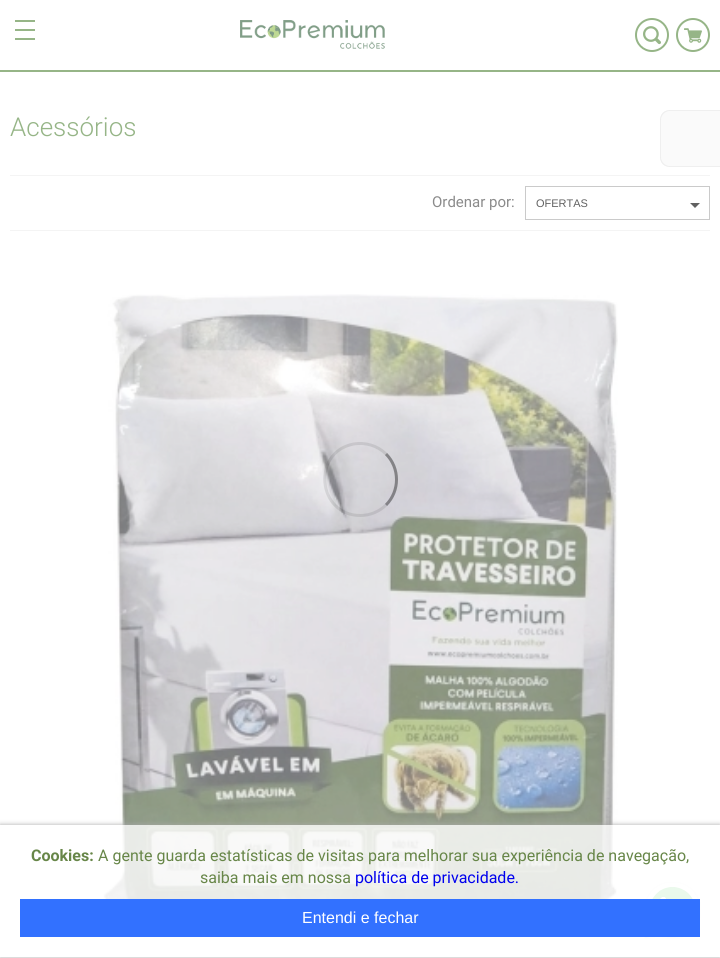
#include <cairo.h>
#include <math.h>
#include <stddef.h>


static void set_color(cairo_t *cr, unsigned color) {
    cairo_set_source_rgb(cr, (color >> 16) / 255.0, (color >> 8 & 255) / 255.0, (color & 255) / 255.0);
}

static void draw_text(cairo_t *cr, double x, double y, const char *s, const char *family, double size, int italic, int bold, unsigned color) {
    cairo_select_font_face(cr, family, italic ? CAIRO_FONT_SLANT_ITALIC : CAIRO_FONT_SLANT_NORMAL,
        bold ? CAIRO_FONT_WEIGHT_BOLD : CAIRO_FONT_WEIGHT_NORMAL);
    cairo_set_font_size(cr, size);
    set_color(cr, color);
    cairo_move_to(cr, x, y);
    cairo_show_text(cr, s);
}

static void fill_rect(cairo_t *cr, double x, double y, double w, double h, unsigned color) {
    set_color(cr, color);
    cairo_rectangle(cr, x, y, w, h);
    cairo_fill(cr);
}

static void rounded_rect(cairo_t *cr, double x, double y, double w, double h, double r) {
    cairo_new_sub_path(cr);
    cairo_arc(cr, x + w - r, y + h - r, r, 0, M_PI / 2);
    cairo_arc(cr, x + r, y + h - r, r, M_PI / 2, M_PI);
    cairo_arc(cr, x + r, y + r, r, M_PI, 1.5 * M_PI);
    cairo_arc(cr, x + w - r, y + r, r, 1.5 * M_PI, 2 * M_PI);
    cairo_close_path(cr);
}

static void draw_shadow(cairo_t *cr, double x, double y, double w, double h, double r, double blur, double alpha) {
    cairo_push_group_with_content(cr, CAIRO_CONTENT_ALPHA);
    cairo_set_operator(cr, CAIRO_OPERATOR_SOURCE);
    for (int i = 15; i >= -15 && fmin(w, h) + blur * i / 3 > 0; i -= 2) {
        double e = blur * i / 6;
        cairo_set_source_rgba(cr, 0, 0, 0, alpha * erfc((i - 1) / 8.5) / 2);
        rounded_rect(cr, x - e, y - e, w + 2 * e, h + 2 * e, fmax(0, fmin(r + e + blur * .6, fmin(w, h) / 2 + e)));
        cairo_fill(cr);
    }
    cairo_pattern_t *soft = cairo_pop_group(cr);
    cairo_mask(cr, soft);
    cairo_pattern_destroy(soft);
}

static void draw_image(cairo_t *cr, const char *path, double x, double y, double w, double h) {
    cairo_surface_t *image = cairo_image_surface_create_from_png(path);
    cairo_save(cr);
    cairo_set_source_surface(cr, image, x, y);
    cairo_rectangle(cr, x, y, w, h);
    cairo_fill(cr);
    cairo_restore(cr);
    cairo_surface_destroy(image);
}

int main(void) {
    cairo_surface_t *surface = cairo_image_surface_create(CAIRO_FORMAT_RGB24, 720, 958);
    cairo_t *cr = cairo_create(surface);
    cairo_font_options_t *options = cairo_font_options_create();
    cairo_font_options_set_hint_metrics(options, CAIRO_HINT_METRICS_OFF);
    cairo_font_options_set_hint_style(options, CAIRO_HINT_STYLE_NONE);
    cairo_set_font_options(cr, options);
    cairo_set_miter_limit(cr, 4);
    set_color(cr, 0xFFFFFF);
    cairo_paint(cr);
    fill_rect(cr, 0, 70, 720, 2, 0x96B587);
    fill_rect(cr, 15, 20, 20, 2, 0x96B587);
    fill_rect(cr, 15, 29, 20, 2, 0x96B587);
    fill_rect(cr, 15, 38, 20, 2, 0x96B587);
    draw_image(cr, "assets/img1.png", 240, 20, 145, 29);
    cairo_arc(cr, 652, 35, 16, 0, 2 * M_PI);
    cairo_stroke(cr);
    draw_image(cr, "assets/img2.png", 643, 26, 18, 19);
    cairo_arc(cr, 693, 35, 16, 0, 2 * M_PI);
    cairo_stroke(cr);
    draw_image(cr, "assets/img3.png", 684, 28, 18, 15);
    draw_text(cr, 10, 136, "Acessórios", "Roboto Light", 26, 0, 0, 0x96B587);
    fill_rect(cr, 10, 175, 700, 1, 0xF4F4F4);
    fill_rect(cr, 10, 230, 700, 1, 0xF4F4F4);
    draw_text(cr, 432, 207, "Ordenar por:", "Roboto", 15, 0, 0, 0x8B8B8B);
    set_color(cr, 0x616161);
    cairo_new_path(cr);
    cairo_move_to(cr, 690, 203);
    cairo_line_to(cr, 700, 203);
    cairo_line_to(cr, 695, 208);
    cairo_close_path(cr);
    cairo_fill(cr);
    cairo_rectangle(cr, 525.5, 186.5, 184, 33);
    set_color(cr, 0xCACACA);
    cairo_set_line_width(cr, 1);
    cairo_stroke(cr);
    draw_text(cr, 536, 207, "OFERTAS", "Liberation Sans", 11, 0, 0, 0x616161);
    draw_image(cr, "assets/img4.png", 103, 294, 515, 605);
    set_color(cr, 0xFAFAFA);
    cairo_new_path(cr);
    cairo_move_to(cr, 670, 110);
    cairo_line_to(cr, 720, 110);
    cairo_line_to(cr, 720, 167);
    cairo_line_to(cr, 670, 167);
    cairo_curve_to(cr, 664.5, 167, 660, 162.5, 660, 157);
    cairo_line_to(cr, 660, 120);
    cairo_curve_to(cr, 660, 114.5, 664.5, 110, 670, 110);
    cairo_close_path(cr);
    cairo_fill(cr);
    cairo_set_source_rgba(cr, 0.933, 0.933, 0.933, 0.93);
    cairo_set_fill_rule(cr, CAIRO_FILL_RULE_EVEN_ODD);
    cairo_new_path(cr);
    cairo_move_to(cr, 670, 110);
    cairo_line_to(cr, 720, 110);
    cairo_line_to(cr, 720, 167);
    cairo_line_to(cr, 670, 167);
    cairo_curve_to(cr, 664, 167, 660, 163, 660, 157);
    cairo_line_to(cr, 660, 120);
    cairo_curve_to(cr, 660, 114, 664, 110, 670, 110);
    cairo_close_path(cr);
    cairo_move_to(cr, 670, 111);
    cairo_line_to(cr, 720, 111);
    cairo_line_to(cr, 720, 166);
    cairo_line_to(cr, 670, 166);
    cairo_curve_to(cr, 665, 166, 661, 162, 661, 157);
    cairo_line_to(cr, 661, 120);
    cairo_curve_to(cr, 661, 115, 665, 111, 670, 111);
    cairo_close_path(cr);
    cairo_fill(cr);
    cairo_new_path(cr);
    cairo_move_to(cr, 386, 454);
    cairo_curve_to(cr, 400, 468, 400, 491, 386, 505);
    cairo_set_source_rgba(cr, 0, 0, 0, 0.38);
    cairo_set_line_width(cr, 3);
    cairo_stroke(cr);
    cairo_new_path(cr);
    cairo_move_to(cr, 386, 505);
    cairo_curve_to(cr, 379.5, 511.5, 370, 515.5, 360.5, 515.5);
    cairo_curve_to(cr, 317.5, 515.5, 311, 452.5, 353.5, 444);
    cairo_curve_to(cr, 365, 442, 377.5, 445.5, 386, 454);
    cairo_set_source_rgba(cr, 0, 0, 0, 0.09);
    cairo_stroke(cr);
    draw_image(cr, "assets/img5.png", 644, 882, 57, 57);
    cairo_save(cr);
    cairo_new_path(cr);
    cairo_move_to(cr, 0, 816);
    cairo_line_to(cr, 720, 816);
    cairo_line_to(cr, 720, 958);
    cairo_line_to(cr, 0, 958);
    cairo_close_path(cr);
    cairo_move_to(cr, 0, 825);
    cairo_line_to(cr, 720, 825);
    cairo_line_to(cr, 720, 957);
    cairo_line_to(cr, 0, 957);
    cairo_close_path(cr);
    cairo_clip(cr);
    set_color(cr, 0xAAAAAA);
    draw_shadow(cr, 0, 825, 720, 132, 0, 2.5, 1);
    cairo_restore(cr);
    cairo_set_source_rgba(cr, 1, 1, 1, 0.8);
    cairo_rectangle(cr, 103, 825, 598, 114);
    cairo_fill(cr);
    draw_text(cr, 31, 861, "Cookies:", "Roboto", 16, 0, 1, 0x678648);
    draw_text(cr, 98, 861, "A gente guarda estatísticas de visitas para melhorar sua experiência de navegação,", "Roboto", 16, 0, 0, 0x678648);
    draw_text(cr, 200, 883, "saiba mais em nossa", "Roboto", 16, 0, 0, 0x678648);
    draw_text(cr, 355, 883, "política de privacidade.", "Roboto", 16, 0, 0, 0x0000EE);
    fill_rect(cr, 20, 899, 680, 38, 0x3271FF);
    draw_text(cr, 302, 923, "Entendi e fechar", "Liberation Sans", 16, 0, 0, 0xFFFFFF);
    cairo_surface_write_to_png(surface, "output.png");
    cairo_font_options_destroy(options);
    cairo_destroy(cr);
    cairo_surface_destroy(surface);
    return 0;
}
